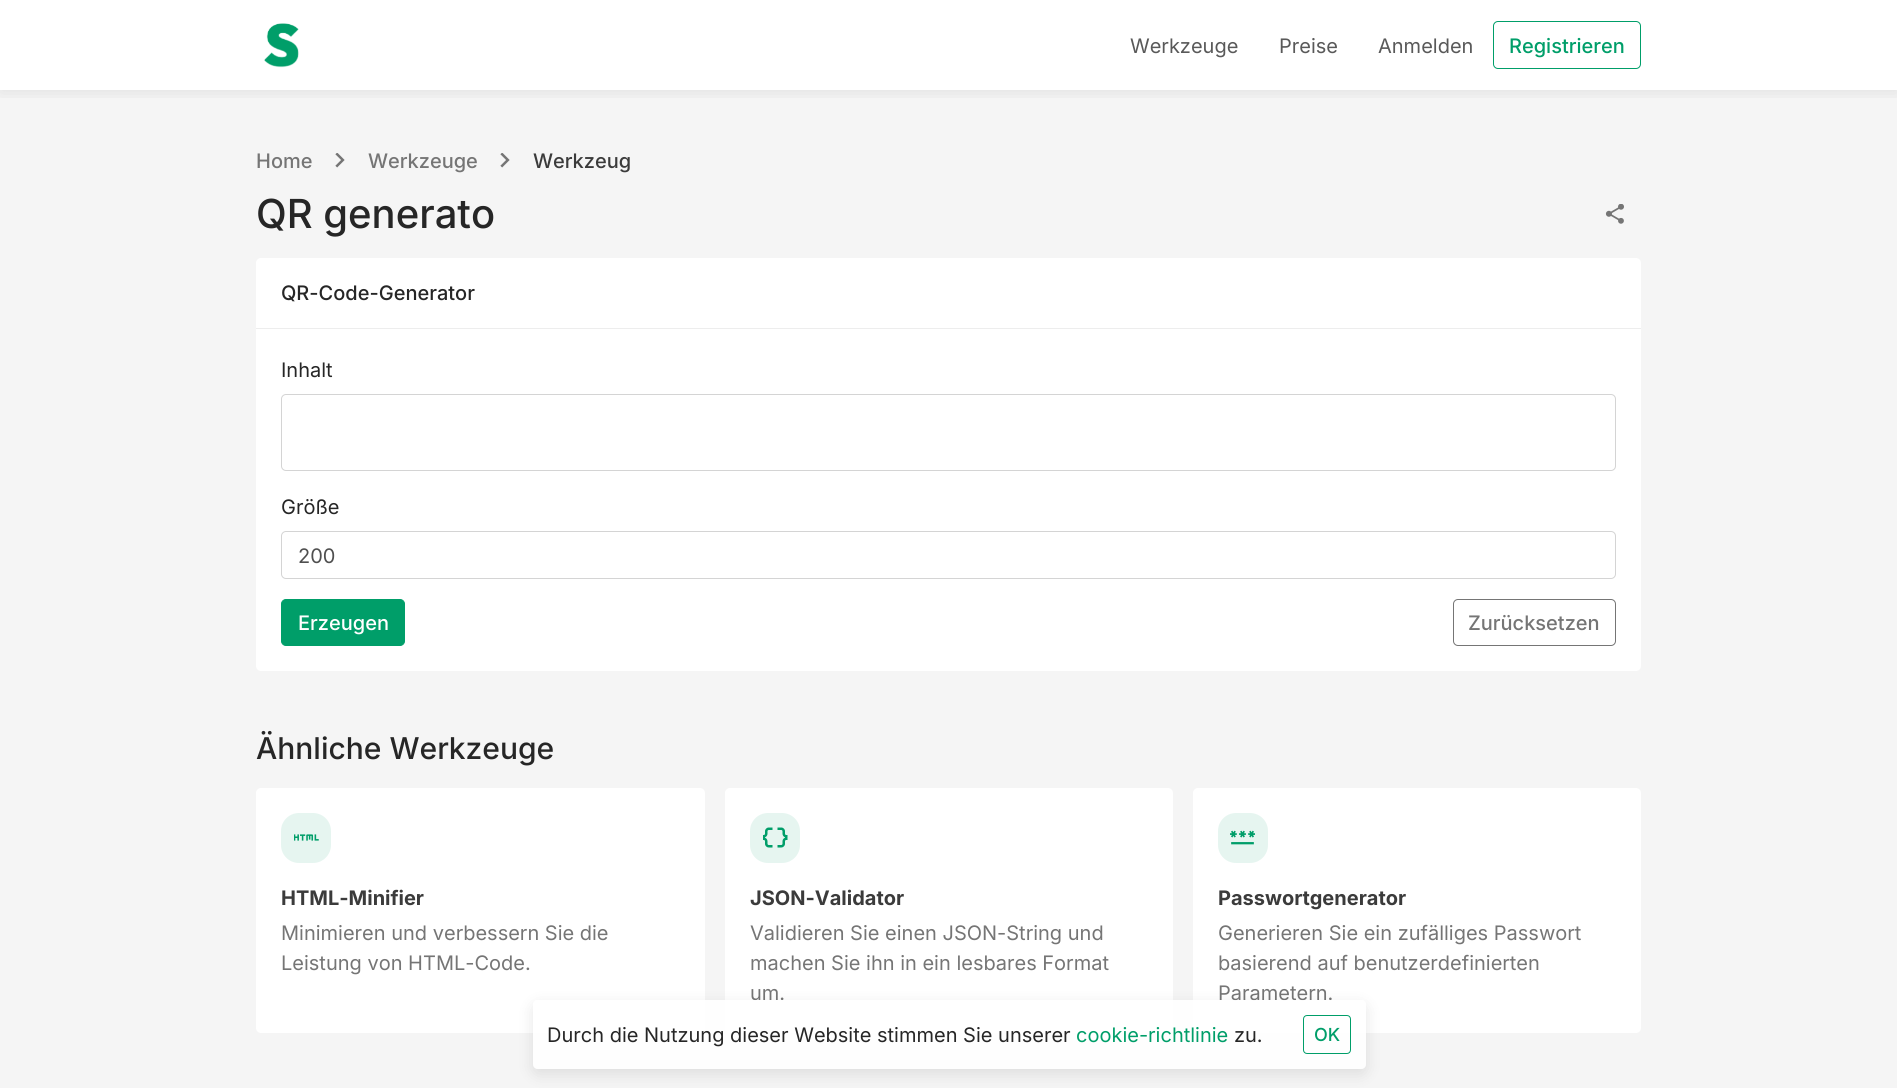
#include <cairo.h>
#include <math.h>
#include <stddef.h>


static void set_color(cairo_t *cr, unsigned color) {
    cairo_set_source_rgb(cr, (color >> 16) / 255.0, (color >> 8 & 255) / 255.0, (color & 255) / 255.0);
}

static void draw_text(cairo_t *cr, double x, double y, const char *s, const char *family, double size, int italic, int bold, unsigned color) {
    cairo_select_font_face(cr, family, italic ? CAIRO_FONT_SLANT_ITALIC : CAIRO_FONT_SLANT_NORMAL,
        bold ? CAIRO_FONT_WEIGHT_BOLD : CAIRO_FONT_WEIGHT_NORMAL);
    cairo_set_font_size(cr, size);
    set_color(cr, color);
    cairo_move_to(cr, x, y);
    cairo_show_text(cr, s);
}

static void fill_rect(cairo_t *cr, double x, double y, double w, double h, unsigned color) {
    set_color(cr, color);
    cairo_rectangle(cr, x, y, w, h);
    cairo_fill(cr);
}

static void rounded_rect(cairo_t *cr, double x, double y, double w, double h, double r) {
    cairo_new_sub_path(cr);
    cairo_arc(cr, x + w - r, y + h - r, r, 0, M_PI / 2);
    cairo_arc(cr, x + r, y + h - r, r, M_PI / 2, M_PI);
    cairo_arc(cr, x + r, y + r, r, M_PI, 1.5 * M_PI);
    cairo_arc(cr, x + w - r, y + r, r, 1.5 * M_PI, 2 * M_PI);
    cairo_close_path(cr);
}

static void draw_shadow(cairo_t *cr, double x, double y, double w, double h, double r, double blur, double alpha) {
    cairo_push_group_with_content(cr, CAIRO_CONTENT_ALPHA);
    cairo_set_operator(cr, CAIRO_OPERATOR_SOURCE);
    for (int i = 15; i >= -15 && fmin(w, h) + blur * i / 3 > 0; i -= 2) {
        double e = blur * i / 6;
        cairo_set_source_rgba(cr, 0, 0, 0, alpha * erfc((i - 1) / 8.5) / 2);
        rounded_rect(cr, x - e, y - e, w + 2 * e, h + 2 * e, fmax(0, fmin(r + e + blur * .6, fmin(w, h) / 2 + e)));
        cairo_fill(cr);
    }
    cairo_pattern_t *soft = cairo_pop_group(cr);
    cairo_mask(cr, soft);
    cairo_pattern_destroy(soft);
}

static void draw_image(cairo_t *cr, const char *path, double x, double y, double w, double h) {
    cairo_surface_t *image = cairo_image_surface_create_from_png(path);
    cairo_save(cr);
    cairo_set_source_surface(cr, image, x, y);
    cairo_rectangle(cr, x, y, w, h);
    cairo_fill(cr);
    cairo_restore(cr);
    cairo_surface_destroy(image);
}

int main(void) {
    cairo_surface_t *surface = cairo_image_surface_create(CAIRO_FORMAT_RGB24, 1897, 1088);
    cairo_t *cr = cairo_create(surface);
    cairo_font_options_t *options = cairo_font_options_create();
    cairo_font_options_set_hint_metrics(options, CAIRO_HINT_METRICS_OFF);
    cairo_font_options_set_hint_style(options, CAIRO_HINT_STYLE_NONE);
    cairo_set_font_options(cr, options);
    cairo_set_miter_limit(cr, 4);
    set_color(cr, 0xFFFFFF);
    cairo_paint(cr);
    fill_rect(cr, 0, 90, 1897, 998, 0xF5F5F5);
    cairo_save(cr);
    cairo_rectangle(cr, 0, 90, 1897, 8);
    cairo_clip(cr);
    set_color(cr, 0x000000);
    draw_shadow(cr, 0, 0, 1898, 90, 0, 10, 0.1);
    cairo_restore(cr);
    draw_image(cr, "assets/img1.png", 264, 23, 35, 45);
    draw_text(cr, 1130, 53, "Werkzeuge", "Inter", 20, 0, 0, 0x595959);
    draw_text(cr, 1279, 53, "Preise", "Inter", 20, 0, 0, 0x595959);
    draw_text(cr, 1378, 53, "Anmelden", "Inter", 20, 0, 0, 0x595959);
    rounded_rect(cr, 1493.5, 21.5, 147, 47, 4.5);
    set_color(cr, 0x009E69);
    cairo_set_line_width(cr, 1);
    cairo_stroke(cr);
    draw_text(cr, 1509, 53, "Registrieren", "Inter Medium", 20, 0, 0, 0x009E69);
    draw_text(cr, 256, 168, "Home", "Inter Medium", 20, 0, 0, 0x757575);
    draw_image(cr, "assets/img2.png", 335, 153, 10, 15);
    draw_text(cr, 368, 168, "Werkzeuge", "Inter Medium", 20, 0, 0, 0x757575);
    draw_image(cr, "assets/img2.png", 500, 153, 10, 15);
    draw_text(cr, 533, 168, "Werkzeug", "Inter Medium", 20, 0, 0, 0x3B3B3B);
    draw_text(cr, 256, 228, "QR generato", "Inter Medium", 40, 0, 0, 0x262626);
    draw_image(cr, "assets/img3.png", 1605, 204, 19, 20);
    set_color(cr, 0xFFFFFF);
    rounded_rect(cr, 256, 258, 1385, 413, 5);
    cairo_fill(cr);
    fill_rect(cr, 256, 328, 1385, 1, 0xEDEDED);
    draw_text(cr, 281, 300, "QR-Code-Generator", "Inter Medium", 20, 0, 0, 0x262626);
    draw_text(cr, 281, 377, "Inhalt", "Inter", 20, 0, 0, 0x262626);
    rounded_rect(cr, 281.5, 394.5, 1334, 76, 4.5);
    set_color(cr, 0xD4D4D4);
    cairo_stroke(cr);
    draw_text(cr, 281, 514, "Größe", "Inter", 20, 0, 0, 0x262626);
    rounded_rect(cr, 281.5, 531.5, 1334, 47, 4.5);
    set_color(cr, 0xD4D4D4);
    cairo_stroke(cr);
    draw_text(cr, 298, 563, "200", "Inter", 20, 0, 0, 0x4F4F4F);
    set_color(cr, 0x009E69);
    rounded_rect(cr, 281.5, 599.5, 123, 46, 4.5);
    cairo_fill_preserve(cr);
    cairo_stroke(cr);
    draw_text(cr, 298, 630, "Erzeugen", "Inter Medium", 20, 0, 0, 0xFFFFFF);
    rounded_rect(cr, 1453.5, 599.5, 162, 46, 4.5);
    set_color(cr, 0x757575);
    cairo_stroke(cr);
    draw_text(cr, 1468, 630, "Zurücksetzen", "Inter Medium", 20, 0, 0, 0x757575);
    draw_text(cr, 256, 759, "Ähnliche Werkzeuge", "Inter Medium", 30, 0, 0, 0x262626);
    set_color(cr, 0xFFFFFF);
    rounded_rect(cr, 256, 788, 449, 245, 5);
    cairo_fill(cr);
    draw_image(cr, "assets/img4.png", 294, 834, 25, 7);
    cairo_set_source_rgba(cr, 0, 0.62, 0.412, 0.1);
    rounded_rect(cr, 281, 813, 50, 50, 18);
    cairo_fill(cr);
    draw_text(cr, 281, 905, "HTML-Minifier", "Inter", 20, 0, 1, 0x3B3B3B);
    draw_text(cr, 281, 940, "Minimieren und verbessern Sie die", "Inter", 20, 0, 0, 0x757575);
    draw_text(cr, 281, 970, "Leistung von HTML-Code.", "Inter", 20, 0, 0, 0x757575);
    set_color(cr, 0xFFFFFF);
    rounded_rect(cr, 725, 788, 448, 245, 5);
    cairo_fill(cr);
    draw_image(cr, "assets/img5.png", 763, 827, 25, 21);
    cairo_set_source_rgba(cr, 0, 0.62, 0.412, 0.1);
    rounded_rect(cr, 750, 813, 50, 50, 18);
    cairo_fill(cr);
    draw_text(cr, 750, 905, "JSON-Validator", "Inter", 20, 0, 1, 0x3B3B3B);
    draw_text(cr, 750, 940, "Validieren Sie einen JSON-String und", "Inter", 20, 0, 0, 0x757575);
    draw_text(cr, 750, 970, "machen Sie ihn in ein lesbares Format", "Inter", 20, 0, 0, 0x757575);
    draw_text(cr, 750, 1000, "um.", "Inter", 20, 0, 0, 0x757575);
    set_color(cr, 0xFFFFFF);
    rounded_rect(cr, 1193, 788, 448, 245, 5);
    cairo_fill(cr);
    draw_image(cr, "assets/img6.png", 1230, 830, 25, 15);
    cairo_set_source_rgba(cr, 0, 0.62, 0.412, 0.1);
    rounded_rect(cr, 1218, 813, 50, 50, 18);
    cairo_fill(cr);
    draw_text(cr, 1218, 905, "Passwortgenerator", "Inter", 20, 0, 1, 0x3B3B3B);
    draw_text(cr, 1218, 940, "Generieren Sie ein zufälliges Passwort", "Inter", 20, 0, 0, 0x757575);
    draw_text(cr, 1218, 970, "basierend auf benutzerdefinierten", "Inter", 20, 0, 0, 0x757575);
    draw_text(cr, 1218, 1000, "Parametern.", "Inter", 20, 0, 0, 0x757575);
    cairo_save(cr);
    cairo_set_fill_rule(cr, CAIRO_FILL_RULE_EVEN_ODD);
    cairo_new_path(cr);
    cairo_move_to(cr, 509, 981);
    cairo_line_to(cr, 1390, 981);
    cairo_line_to(cr, 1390, 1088);
    cairo_line_to(cr, 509, 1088);
    cairo_close_path(cr);
    cairo_move_to(cr, 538, 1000);
    cairo_line_to(cr, 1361, 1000);
    cairo_curve_to(cr, 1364, 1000, 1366, 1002, 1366, 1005);
    cairo_line_to(cr, 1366, 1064);
    cairo_curve_to(cr, 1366, 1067, 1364, 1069, 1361, 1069);
    cairo_line_to(cr, 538, 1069);
    cairo_curve_to(cr, 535, 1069, 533, 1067, 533, 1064);
    cairo_line_to(cr, 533, 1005);
    cairo_curve_to(cr, 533, 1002, 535, 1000, 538, 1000);
    cairo_close_path(cr);
    cairo_clip(cr);
    set_color(cr, 0x000000);
    draw_shadow(cr, 533, 1005, 833, 69, 5, 7.5, 0.1);
    cairo_restore(cr);
    cairo_set_source_rgba(cr, 1, 1, 1, 0.85);
    rounded_rect(cr, 533, 1000, 833, 69, 5);
    cairo_fill(cr);
    draw_text(cr, 547, 1042, "Durch die Nutzung dieser Website stimmen Sie unserer", "Inter", 20, 0, 0, 0x262626);
    draw_text(cr, 1076, 1042, "cookie-richtlinie", "Inter", 20, 0, 0, 0x009E69);
    draw_text(cr, 1234, 1042, "zu.", "Inter", 20, 0, 0, 0x262626);
    rounded_rect(cr, 1303.5, 1015.5, 47, 38, 3.5);
    set_color(cr, 0x009E69);
    cairo_stroke(cr);
    draw_text(cr, 1314, 1041, "OK", "Inter Medium", 18, 0, 0, 0x009E69);
    cairo_surface_write_to_png(surface, "output.png");
    cairo_font_options_destroy(options);
    cairo_destroy(cr);
    cairo_surface_destroy(surface);
    return 0;
}
